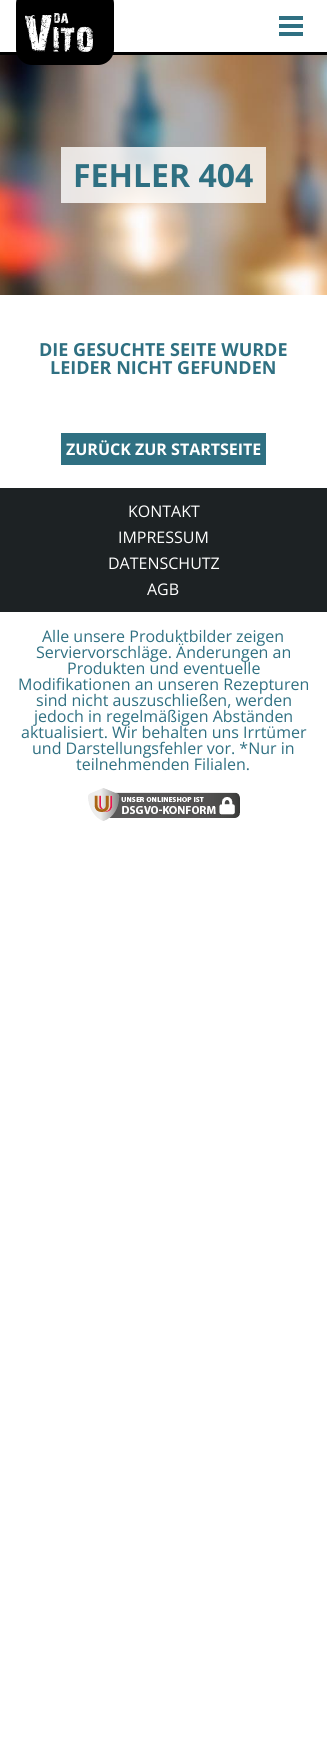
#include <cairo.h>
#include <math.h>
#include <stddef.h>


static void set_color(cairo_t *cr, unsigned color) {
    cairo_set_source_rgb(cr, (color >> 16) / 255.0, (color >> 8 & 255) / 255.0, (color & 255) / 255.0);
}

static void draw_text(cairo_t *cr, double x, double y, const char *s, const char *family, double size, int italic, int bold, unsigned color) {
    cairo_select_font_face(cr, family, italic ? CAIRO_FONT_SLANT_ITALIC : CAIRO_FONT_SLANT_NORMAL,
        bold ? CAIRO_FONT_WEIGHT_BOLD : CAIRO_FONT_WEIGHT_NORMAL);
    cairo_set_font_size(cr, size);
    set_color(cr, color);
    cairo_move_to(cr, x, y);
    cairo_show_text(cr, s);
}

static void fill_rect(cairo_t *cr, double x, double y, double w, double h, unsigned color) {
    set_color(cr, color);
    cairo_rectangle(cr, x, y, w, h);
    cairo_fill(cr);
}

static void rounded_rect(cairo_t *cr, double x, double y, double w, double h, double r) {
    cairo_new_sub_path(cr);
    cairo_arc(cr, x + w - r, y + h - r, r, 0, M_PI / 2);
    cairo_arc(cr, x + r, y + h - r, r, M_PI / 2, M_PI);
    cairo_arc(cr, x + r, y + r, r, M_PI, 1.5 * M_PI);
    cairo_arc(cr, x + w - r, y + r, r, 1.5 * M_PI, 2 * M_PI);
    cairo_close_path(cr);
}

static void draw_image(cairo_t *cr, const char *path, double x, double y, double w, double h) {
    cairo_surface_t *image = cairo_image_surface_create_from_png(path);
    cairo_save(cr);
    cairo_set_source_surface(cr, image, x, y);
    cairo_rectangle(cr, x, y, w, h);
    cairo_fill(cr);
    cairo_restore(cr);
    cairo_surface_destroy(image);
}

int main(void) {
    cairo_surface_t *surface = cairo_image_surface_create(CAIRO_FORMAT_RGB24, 327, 1741);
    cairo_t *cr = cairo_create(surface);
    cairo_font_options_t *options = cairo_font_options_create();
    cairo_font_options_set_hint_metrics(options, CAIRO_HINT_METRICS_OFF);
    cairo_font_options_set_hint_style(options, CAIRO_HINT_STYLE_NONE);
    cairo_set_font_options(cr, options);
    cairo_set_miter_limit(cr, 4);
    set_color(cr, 0xFFFFFF);
    cairo_paint(cr);
    fill_rect(cr, 0, 52, 327, 3, 0x000000);
    draw_image(cr, "assets/img2.png", 0, 55, 327, 240);
    rounded_rect(cr, 16, -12, 98, 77, 16);
    cairo_fill(cr);
    draw_image(cr, "assets/img1.png", 25, 13, 68, 39);
    fill_rect(cr, 279, 16, 24, 4, 0x2F7082);
    fill_rect(cr, 279, 24, 24, 4, 0x2F7082);
    fill_rect(cr, 279, 32, 24, 4, 0x2F7082);
    cairo_set_source_rgba(cr, 1, 1, 1, 0.8);
    cairo_rectangle(cr, 61, 147, 205, 56);
    cairo_fill(cr);
    draw_text(cr, 73, 187, "FEHLER 404", "Open Sans", 32, 0, 1, 0x2F7082);
    draw_text(cr, 39, 356, "DIE GESUCHTE SEITE WURDE", "Open Sans", 18, 0, 1, 0x2F7082);
    draw_text(cr, 50, 374, "LEIDER NICHT GEFUNDEN", "Open Sans", 18, 0, 1, 0x2F7082);
    fill_rect(cr, 61, 433, 205, 32, 0x2F7082);
    draw_text(cr, 66, 455, "ZURÜCK ZUR STARTSEITE", "Open Sans", 16, 0, 1, 0xFFFFFF);
    fill_rect(cr, 0, 488, 327, 124, 0x1D2224);
    draw_text(cr, 128, 517, "KONTAKT", "Open Sans", 16, 0, 0, 0xFFFFFF);
    draw_text(cr, 118, 543, "IMPRESSUM", "Open Sans", 16, 0, 0, 0xFFFFFF);
    draw_text(cr, 108, 569, "DATENSCHUTZ", "Open Sans", 16, 0, 0, 0xFFFFFF);
    draw_text(cr, 147, 595, "AGB", "Open Sans", 16, 0, 0, 0xFFFFFF);
    draw_text(cr, 42, 642, "Alle unsere Produktbilder zeigen", "Open Sans", 16, 0, 0, 0x2F7082);
    draw_text(cr, 36, 658, "Serviervorschläge. Änderungen an", "Open Sans", 16, 0, 0, 0x2F7082);
    draw_text(cr, 67, 674, "Produkten und eventuelle", "Open Sans", 16, 0, 0, 0x2F7082);
    draw_text(cr, 18, 690, "Modifikationen an unseren Rezepturen", "Open Sans", 16, 0, 0, 0x2F7082);
    draw_text(cr, 36, 706, "sind nicht auszuschließen, werden", "Open Sans", 16, 0, 0, 0x2F7082);
    draw_text(cr, 34, 722, "jedoch in regelmäßigen Abständen", "Open Sans", 16, 0, 0, 0x2F7082);
    draw_text(cr, 21, 738, "aktualisiert. Wir behalten uns Irrtümer", "Open Sans", 16, 0, 0, 0x2F7082);
    draw_text(cr, 32, 754, "und Darstellungsfehler vor. *Nur in", "Open Sans", 16, 0, 0, 0x2F7082);
    draw_text(cr, 76, 770, "teilnehmenden Filialen.", "Open Sans", 16, 0, 0, 0x2F7082);
    draw_image(cr, "assets/img3.png", 88, 788, 152, 33);
    cairo_surface_write_to_png(surface, "output.png");
    cairo_font_options_destroy(options);
    cairo_destroy(cr);
    cairo_surface_destroy(surface);
    return 0;
}
